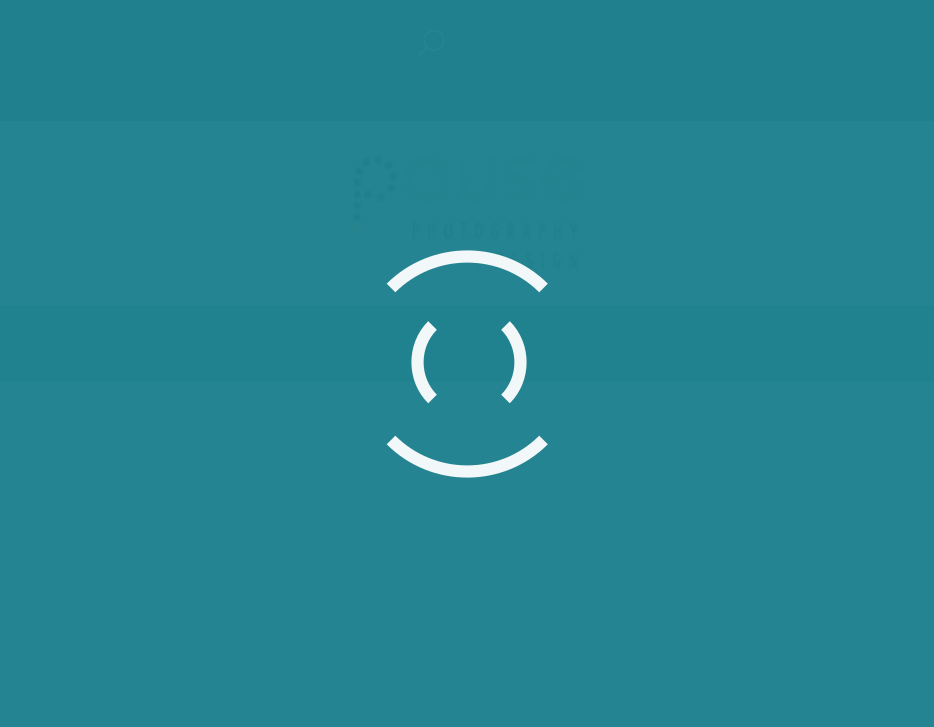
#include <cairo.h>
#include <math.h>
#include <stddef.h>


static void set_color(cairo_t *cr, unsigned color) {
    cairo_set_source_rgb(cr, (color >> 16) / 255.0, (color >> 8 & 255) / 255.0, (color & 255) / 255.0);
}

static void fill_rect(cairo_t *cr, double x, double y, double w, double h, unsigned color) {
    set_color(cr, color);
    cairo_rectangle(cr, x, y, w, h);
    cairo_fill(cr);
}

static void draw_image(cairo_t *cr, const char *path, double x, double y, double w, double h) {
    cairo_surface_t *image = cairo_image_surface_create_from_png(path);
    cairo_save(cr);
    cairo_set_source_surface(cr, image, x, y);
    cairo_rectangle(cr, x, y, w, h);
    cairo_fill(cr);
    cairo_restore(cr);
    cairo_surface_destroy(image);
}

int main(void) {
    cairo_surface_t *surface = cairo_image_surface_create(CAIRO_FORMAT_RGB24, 934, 727);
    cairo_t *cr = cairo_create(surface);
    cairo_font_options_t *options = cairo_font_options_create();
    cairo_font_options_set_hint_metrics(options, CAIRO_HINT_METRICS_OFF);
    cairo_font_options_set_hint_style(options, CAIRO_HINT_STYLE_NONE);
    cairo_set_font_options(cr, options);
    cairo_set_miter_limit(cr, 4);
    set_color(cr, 0x258491);
    cairo_paint(cr);
    fill_rect(cr, 0, 0, 934, 121, 0x21808D);
    draw_image(cr, "assets/img1.png", 418, 30, 27, 26);
    draw_image(cr, "assets/img2.png", 350, 155, 237, 115);
    fill_rect(cr, 0, 305, 934, 77, 0x21828F);
    cairo_new_path(cr);
    cairo_move_to(cr, 391, 288);
    cairo_curve_to(cr, 433, 246, 501.5, 246, 543.5, 288);
    cairo_set_source_rgba(cr, 1, 1, 1, 0.94);
    cairo_set_line_width(cr, 12.2);
    cairo_stroke(cr);
    cairo_new_path(cr);
    cairo_move_to(cr, 543.5, 440);
    cairo_curve_to(cr, 501.5, 482, 433, 482, 391, 440);
    cairo_stroke(cr);
    cairo_new_path(cr);
    cairo_move_to(cr, 505.5, 325.5);
    cairo_curve_to(cr, 525.5, 345.5, 525.5, 379, 505.5, 399);
    cairo_stroke(cr);
    cairo_new_path(cr);
    cairo_move_to(cr, 432.5, 399);
    cairo_curve_to(cr, 412.5, 379, 412.5, 345.5, 432.5, 325.5);
    cairo_stroke(cr);
    cairo_surface_write_to_png(surface, "output.png");
    cairo_font_options_destroy(options);
    cairo_destroy(cr);
    cairo_surface_destroy(surface);
    return 0;
}
